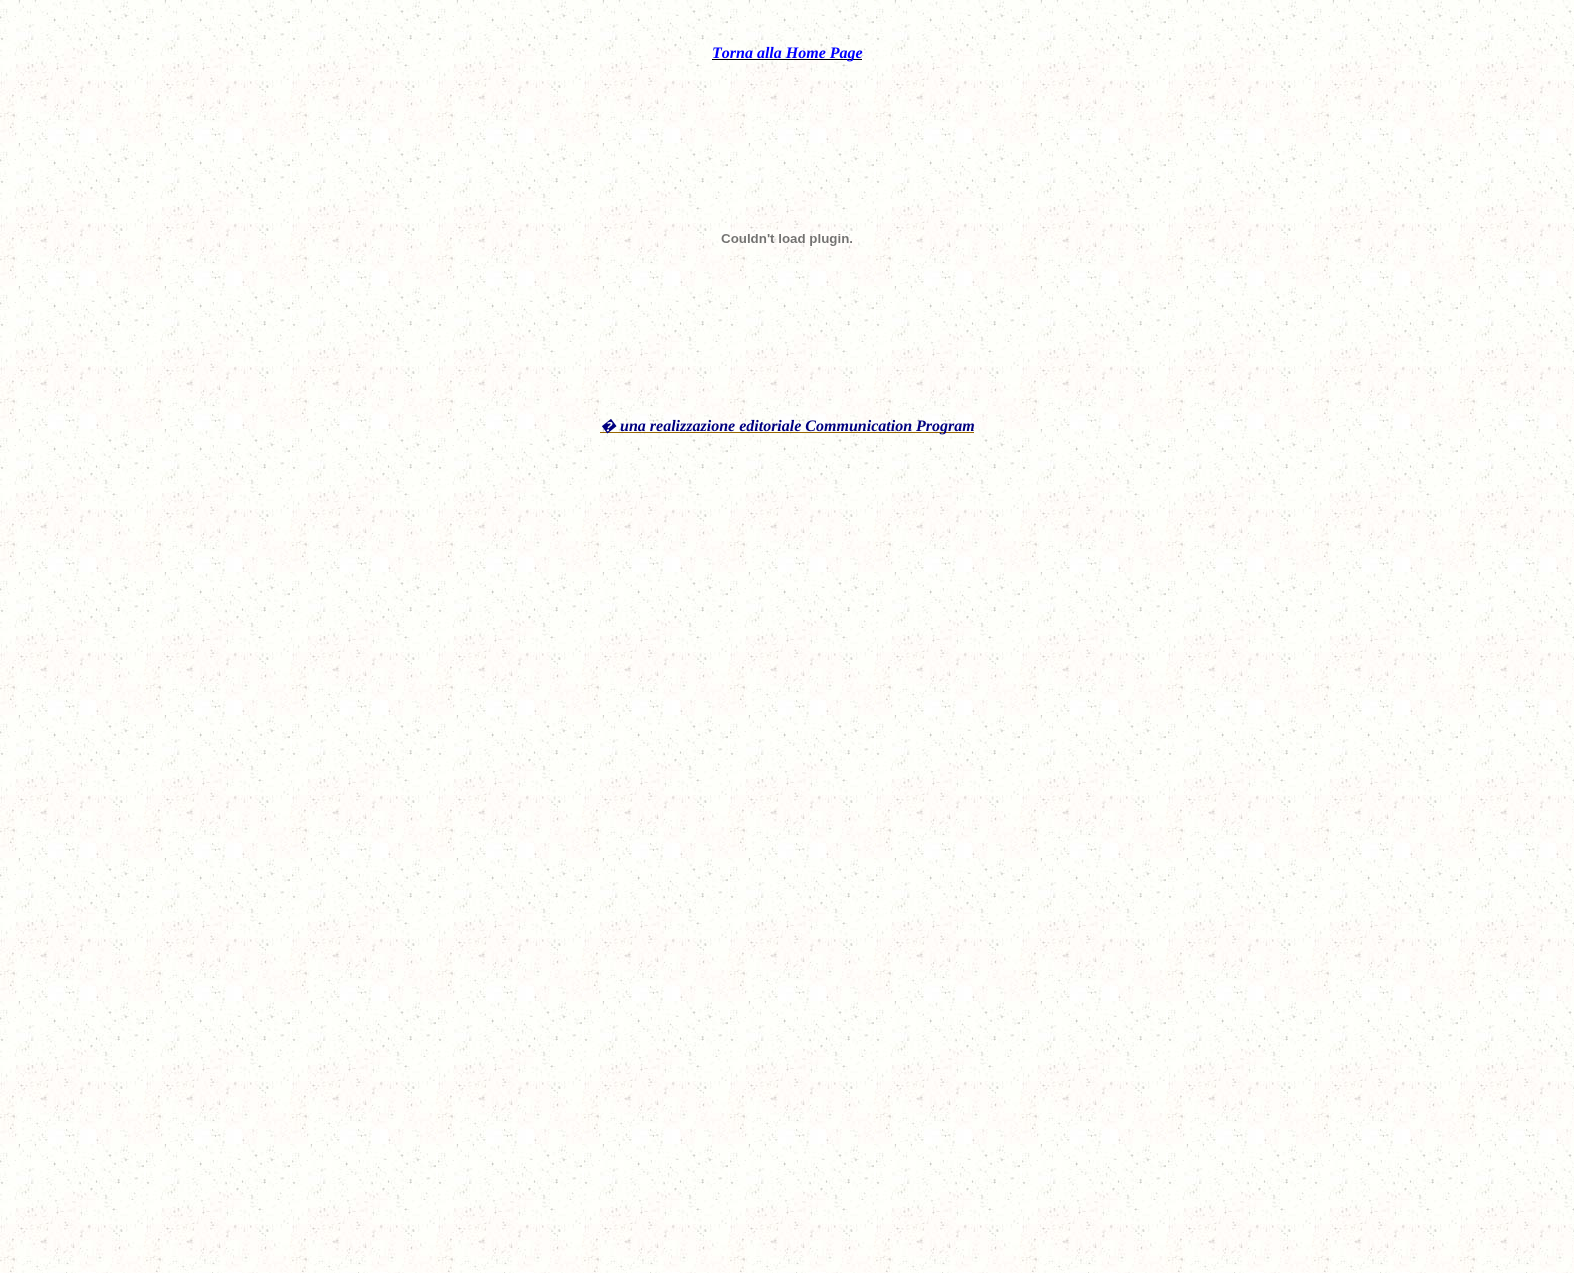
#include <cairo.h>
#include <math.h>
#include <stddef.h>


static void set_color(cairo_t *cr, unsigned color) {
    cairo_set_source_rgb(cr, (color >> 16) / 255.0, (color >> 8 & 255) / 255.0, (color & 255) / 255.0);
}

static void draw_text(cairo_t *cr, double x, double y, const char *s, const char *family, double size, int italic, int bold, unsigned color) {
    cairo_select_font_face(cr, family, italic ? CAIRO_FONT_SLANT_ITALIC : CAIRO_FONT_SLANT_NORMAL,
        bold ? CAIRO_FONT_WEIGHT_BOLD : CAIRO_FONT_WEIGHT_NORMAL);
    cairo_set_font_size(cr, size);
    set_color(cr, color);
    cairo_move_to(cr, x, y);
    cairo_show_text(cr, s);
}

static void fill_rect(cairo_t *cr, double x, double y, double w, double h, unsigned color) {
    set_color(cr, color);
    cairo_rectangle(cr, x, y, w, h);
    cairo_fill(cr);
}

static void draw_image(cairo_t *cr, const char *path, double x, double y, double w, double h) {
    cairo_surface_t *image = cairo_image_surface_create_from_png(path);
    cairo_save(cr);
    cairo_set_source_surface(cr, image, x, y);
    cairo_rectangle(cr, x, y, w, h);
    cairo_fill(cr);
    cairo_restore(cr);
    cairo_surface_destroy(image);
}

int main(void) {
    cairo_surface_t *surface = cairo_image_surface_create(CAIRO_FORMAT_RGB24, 1574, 1273);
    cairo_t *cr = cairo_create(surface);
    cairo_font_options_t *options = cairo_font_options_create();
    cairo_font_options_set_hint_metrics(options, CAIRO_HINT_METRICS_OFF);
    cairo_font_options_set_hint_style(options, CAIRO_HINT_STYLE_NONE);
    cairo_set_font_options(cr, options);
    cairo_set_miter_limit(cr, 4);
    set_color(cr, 0xFFFFFF);
    cairo_paint(cr);
    draw_image(cr, "assets/img1.png", 0, 0, 1574, 1273);
    fill_rect(cr, 712, 59, 150, 1, 0x000000);
    draw_text(cr, 712, 58, "Torna alla Home Page", "Liberation Serif", 16, 1, 1, 0x0000FF);
    draw_image(cr, "assets/img2.png", 721, 229, 131, 18);
    fill_rect(cr, 600, 432, 374, 1, 0x996600);
    draw_text(cr, 600, 431, "�", "Noto Sans", 16, 1, 1, 0x000080);
    draw_text(cr, 620, 431, "una realizzazione editoriale Communication Program", "Liberation Serif", 16, 1, 1, 0x000080);
    cairo_surface_write_to_png(surface, "output.png");
    cairo_font_options_destroy(options);
    cairo_destroy(cr);
    cairo_surface_destroy(surface);
    return 0;
}
